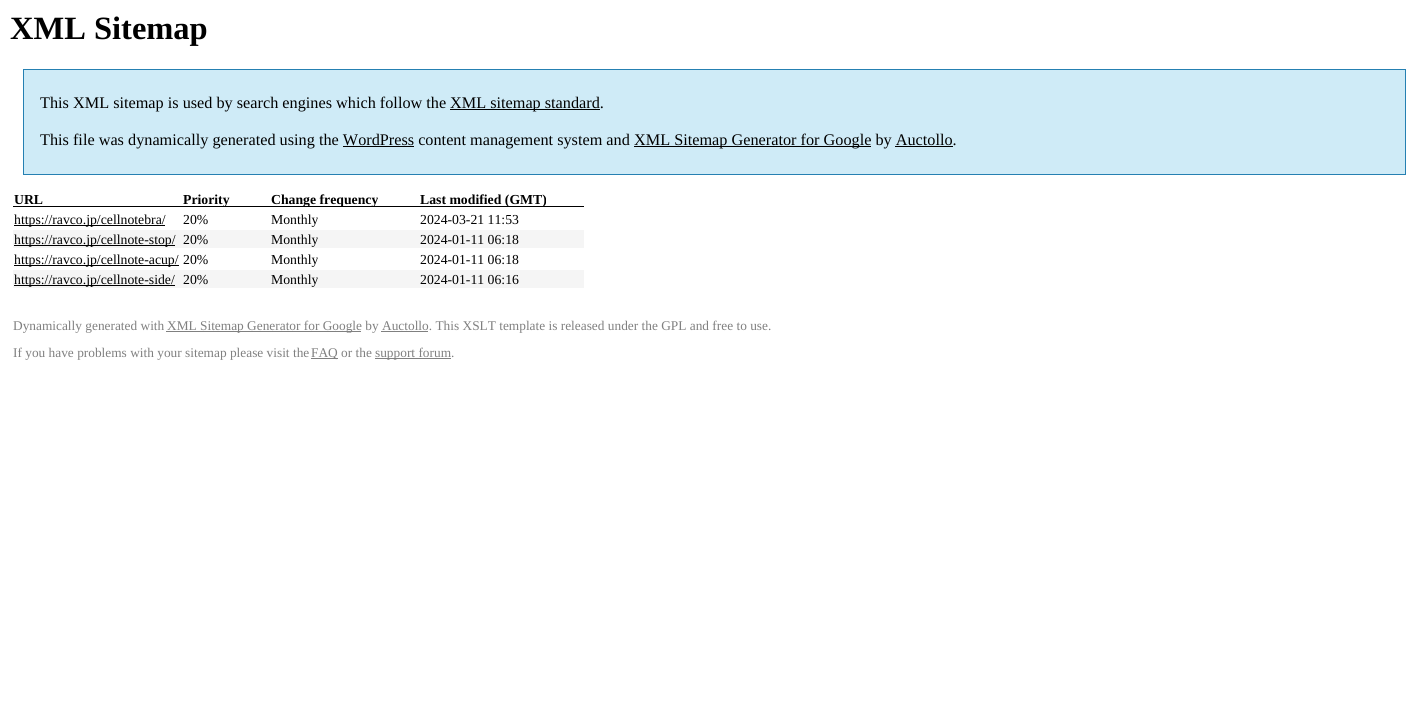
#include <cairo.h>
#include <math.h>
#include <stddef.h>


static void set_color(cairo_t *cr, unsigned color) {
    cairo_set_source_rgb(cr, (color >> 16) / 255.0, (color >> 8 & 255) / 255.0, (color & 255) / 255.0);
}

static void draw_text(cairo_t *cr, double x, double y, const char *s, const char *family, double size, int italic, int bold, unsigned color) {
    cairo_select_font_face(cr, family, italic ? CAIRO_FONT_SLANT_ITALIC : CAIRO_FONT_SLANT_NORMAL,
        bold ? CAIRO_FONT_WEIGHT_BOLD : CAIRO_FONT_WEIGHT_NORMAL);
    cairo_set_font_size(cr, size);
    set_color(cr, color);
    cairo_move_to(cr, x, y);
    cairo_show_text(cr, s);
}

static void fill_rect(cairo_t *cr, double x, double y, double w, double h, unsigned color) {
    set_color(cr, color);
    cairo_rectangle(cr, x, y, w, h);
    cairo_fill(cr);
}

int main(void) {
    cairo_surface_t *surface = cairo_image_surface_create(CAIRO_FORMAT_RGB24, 1428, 728);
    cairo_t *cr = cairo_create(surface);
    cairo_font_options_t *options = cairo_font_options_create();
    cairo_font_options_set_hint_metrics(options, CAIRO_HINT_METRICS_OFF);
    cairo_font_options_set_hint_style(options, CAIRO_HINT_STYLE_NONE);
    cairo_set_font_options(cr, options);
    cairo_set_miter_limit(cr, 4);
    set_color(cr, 0xFFFFFF);
    cairo_paint(cr);
    draw_text(cr, 10, 39, "XML Sitemap", "Liberation Serif", 32.5, 0, 1, 0x000000);
    set_color(cr, 0xCFEBF7);
    cairo_rectangle(cr, 23.5, 69.5, 1382, 105);
    cairo_fill_preserve(cr);
    set_color(cr, 0x2580B2);
    cairo_set_line_width(cr, 1);
    cairo_stroke(cr);
    draw_text(cr, 40, 108, "This XML sitemap is used by search engines which follow the", "Liberation Serif", 16.25, 0, 0, 0x000000);
    fill_rect(cr, 450, 109, 150, 1, 0x000000);
    draw_text(cr, 450, 108, "XML sitemap standard.", "Liberation Serif", 16.25, 0, 0, 0x000000);
    draw_text(cr, 40, 145, "This file was dynamically generated using the WordPress content management system and", "Liberation Serif", 16.25, 0, 0, 0x000000);
    fill_rect(cr, 634, 146, 237, 1, 0x000000);
    draw_text(cr, 634, 145, "XML Sitemap Generator for Google by Auctollo.", "Liberation Serif", 16.25, 0, 0, 0x000000);
    fill_rect(cr, 343, 146, 71, 1, 0x000000);
    fill_rect(cr, 895, 146, 58, 1, 0x000000);
    fill_rect(cr, 13, 206, 571, 1, 0x000000);
    draw_text(cr, 14, 204, "URL", "Liberation Serif", 13.75, 0, 1, 0x000000);
    draw_text(cr, 183, 204, "Priority", "Liberation Serif", 13.75, 0, 1, 0x000000);
    draw_text(cr, 271, 204, "Change frequency", "Liberation Serif", 13.75, 0, 1, 0x000000);
    draw_text(cr, 420, 204, "Last modified (GMT)", "Liberation Serif", 13.75, 0, 1, 0x000000);
    fill_rect(cr, 14, 225, 151, 1, 0x000000);
    draw_text(cr, 14, 224, "https://ravco.jp/cellnotebra/", "Liberation Serif", 13.75, 0, 0, 0x000000);
    draw_text(cr, 183, 224, "20%", "Liberation Serif", 13.75, 0, 0, 0x000000);
    draw_text(cr, 271, 224, "Monthly", "Liberation Serif", 13.75, 0, 0, 0x000000);
    draw_text(cr, 420, 224, "2024-03-21 11:53", "Liberation Serif", 13.75, 0, 0, 0x000000);
    fill_rect(cr, 13, 230, 571, 18, 0xF5F5F5);
    fill_rect(cr, 14, 245, 161, 1, 0x000000);
    draw_text(cr, 14, 244, "https://ravco.jp/cellnote-stop/", "Liberation Serif", 13.75, 0, 0, 0x000000);
    draw_text(cr, 183, 244, "20%", "Liberation Serif", 13.75, 0, 0, 0x000000);
    draw_text(cr, 271, 244, "Monthly", "Liberation Serif", 13.75, 0, 0, 0x000000);
    draw_text(cr, 420, 244, "2024-01-11 06:18", "Liberation Serif", 13.75, 0, 0, 0x000000);
    fill_rect(cr, 14, 265, 165, 1, 0x000000);
    draw_text(cr, 14, 264, "https://ravco.jp/cellnote-acup/", "Liberation Serif", 13.75, 0, 0, 0x000000);
    draw_text(cr, 183, 264, "20%", "Liberation Serif", 13.75, 0, 0, 0x000000);
    draw_text(cr, 271, 264, "Monthly", "Liberation Serif", 13.75, 0, 0, 0x000000);
    draw_text(cr, 420, 264, "2024-01-11 06:18", "Liberation Serif", 13.75, 0, 0, 0x000000);
    fill_rect(cr, 13, 270, 571, 18, 0xF5F5F5);
    fill_rect(cr, 14, 285, 161, 1, 0x000000);
    draw_text(cr, 14, 284, "https://ravco.jp/cellnote-side/", "Liberation Serif", 13.75, 0, 0, 0x000000);
    draw_text(cr, 183, 284, "20%", "Liberation Serif", 13.75, 0, 0, 0x000000);
    draw_text(cr, 271, 284, "Monthly", "Liberation Serif", 13.75, 0, 0, 0x000000);
    draw_text(cr, 420, 284, "2024-01-11 06:16", "Liberation Serif", 13.75, 0, 0, 0x000000);
    draw_text(cr, 13, 330, "Dynamically generated with", "Liberation Serif", 13.35, 0, 0, 0x808080);
    fill_rect(cr, 166, 331, 195, 1, 0x808080);
    draw_text(cr, 167, 330, "XML Sitemap Generator for Google by Auctollo. This XSLT template is released under the GPL and free to use.", "Liberation Serif", 13.35, 0, 0, 0x808080);
    fill_rect(cr, 381, 331, 47, 1, 0x808080);
    draw_text(cr, 13, 357, "If you have problems with your sitemap please visit the", "Liberation Serif", 13.35, 0, 0, 0x808080);
    fill_rect(cr, 311, 358, 27, 1, 0x808080);
    draw_text(cr, 311, 357, "FAQ or the", "Liberation Serif", 13.35, 0, 0, 0x808080);
    fill_rect(cr, 375, 358, 76, 1, 0x808080);
    draw_text(cr, 375, 357, "support forum.", "Liberation Serif", 13.35, 0, 0, 0x808080);
    cairo_surface_write_to_png(surface, "output.png");
    cairo_font_options_destroy(options);
    cairo_destroy(cr);
    cairo_surface_destroy(surface);
    return 0;
}
